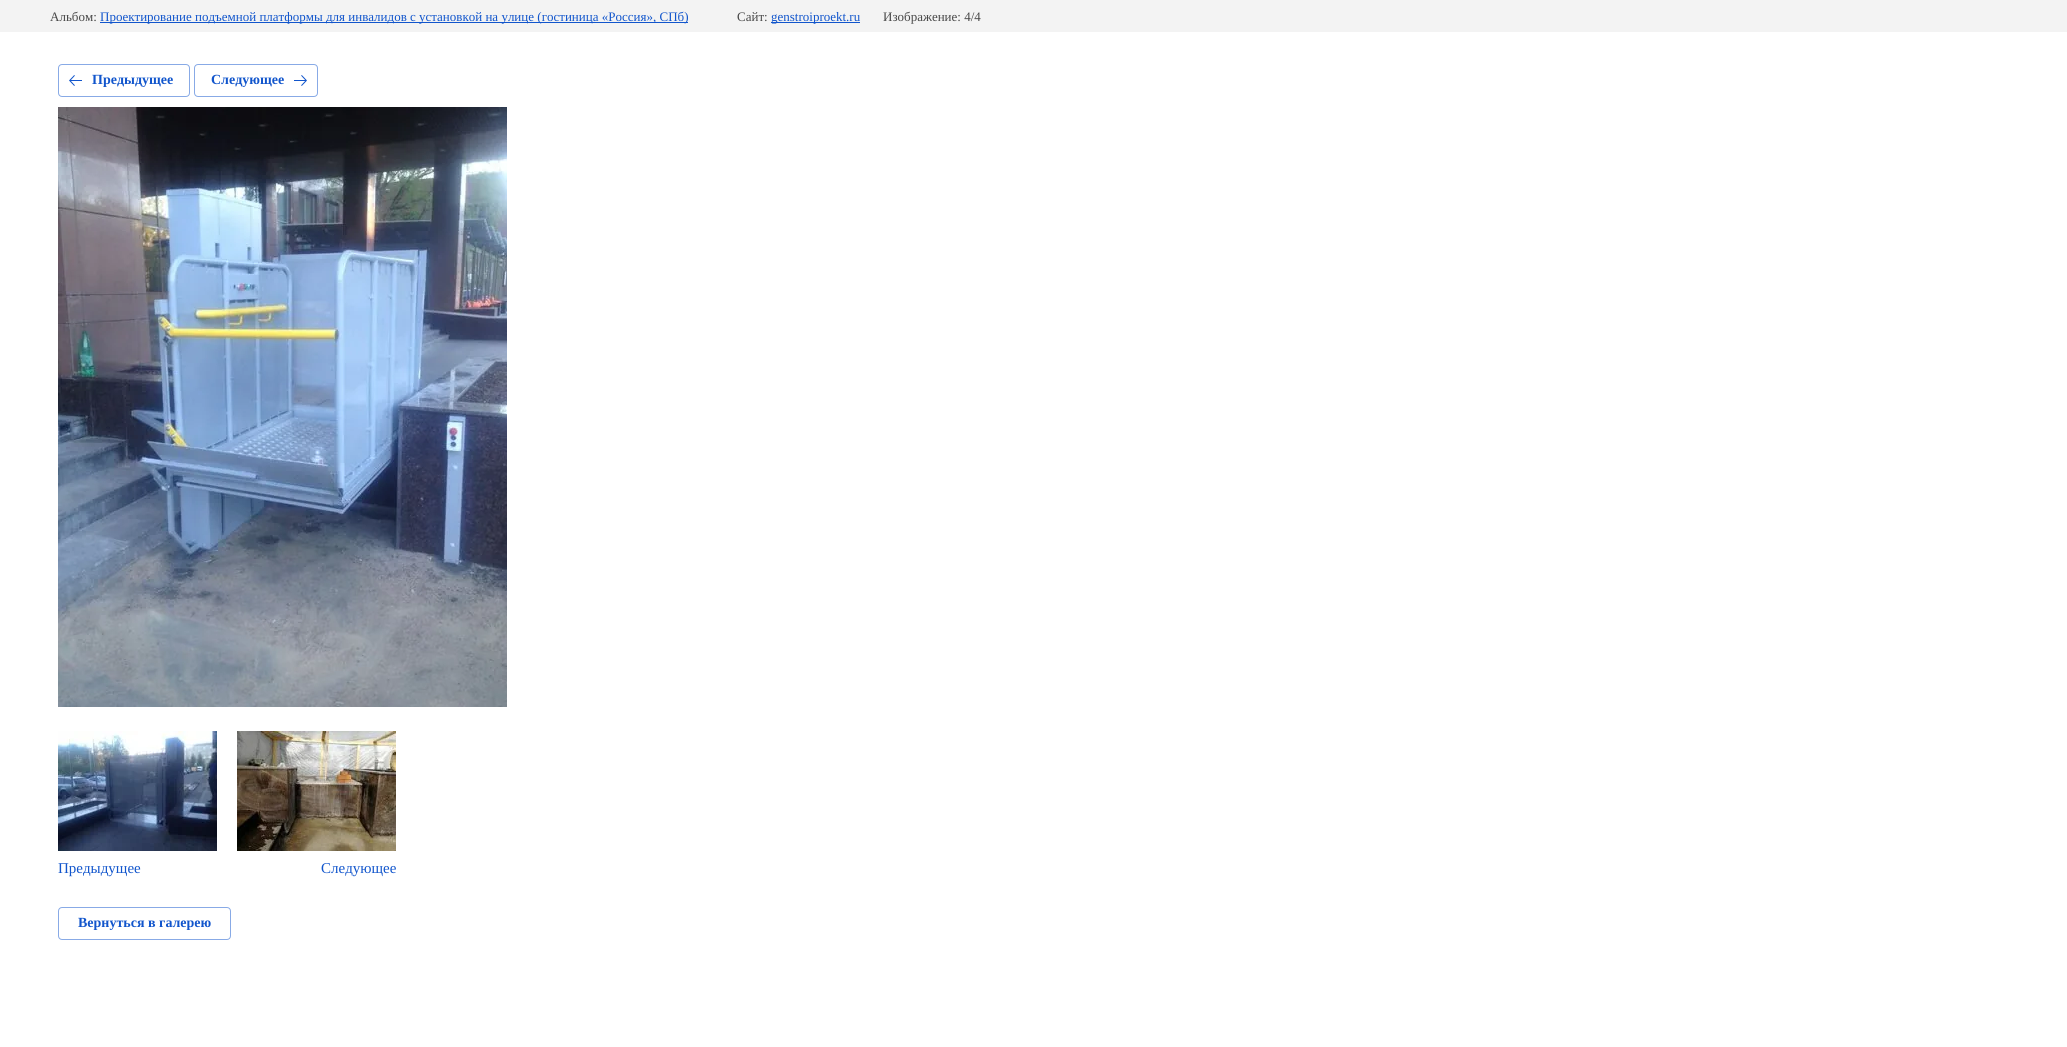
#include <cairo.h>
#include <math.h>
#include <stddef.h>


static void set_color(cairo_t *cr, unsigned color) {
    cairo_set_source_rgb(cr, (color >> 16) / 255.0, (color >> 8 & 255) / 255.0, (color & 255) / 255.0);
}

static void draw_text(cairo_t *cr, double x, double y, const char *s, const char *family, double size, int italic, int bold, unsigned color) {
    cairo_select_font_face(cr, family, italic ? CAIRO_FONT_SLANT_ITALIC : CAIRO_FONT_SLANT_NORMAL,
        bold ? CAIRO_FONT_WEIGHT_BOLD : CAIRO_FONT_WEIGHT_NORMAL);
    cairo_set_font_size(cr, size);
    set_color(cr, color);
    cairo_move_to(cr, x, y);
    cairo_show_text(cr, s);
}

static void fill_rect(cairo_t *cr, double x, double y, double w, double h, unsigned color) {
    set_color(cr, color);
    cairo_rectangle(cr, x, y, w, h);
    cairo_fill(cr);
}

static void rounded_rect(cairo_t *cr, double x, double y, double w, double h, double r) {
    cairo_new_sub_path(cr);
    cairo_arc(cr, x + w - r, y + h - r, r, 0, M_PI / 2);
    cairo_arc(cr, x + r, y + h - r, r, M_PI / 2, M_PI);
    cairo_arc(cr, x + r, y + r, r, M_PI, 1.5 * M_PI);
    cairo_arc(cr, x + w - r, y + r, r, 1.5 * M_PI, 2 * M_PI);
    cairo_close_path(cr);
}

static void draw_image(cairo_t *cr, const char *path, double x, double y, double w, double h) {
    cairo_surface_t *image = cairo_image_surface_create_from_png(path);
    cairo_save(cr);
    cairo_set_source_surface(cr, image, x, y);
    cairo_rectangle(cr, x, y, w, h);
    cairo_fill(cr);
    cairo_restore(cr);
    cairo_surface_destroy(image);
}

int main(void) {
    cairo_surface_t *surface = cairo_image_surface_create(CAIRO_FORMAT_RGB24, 2067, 1047);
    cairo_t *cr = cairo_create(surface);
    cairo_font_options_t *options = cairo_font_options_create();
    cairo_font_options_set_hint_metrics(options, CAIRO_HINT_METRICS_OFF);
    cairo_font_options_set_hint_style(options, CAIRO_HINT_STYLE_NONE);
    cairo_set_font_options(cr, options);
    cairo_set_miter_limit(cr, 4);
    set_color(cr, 0xFFFFFF);
    cairo_paint(cr);
    fill_rect(cr, 0, 0, 2067, 32, 0xF3F3F3);
    draw_text(cr, 50, 21, "Альбом:", "Liberation Serif", 13, 0, 0, 0x484848);
    fill_rect(cr, 100, 22, 588, 1, 0x1155CC);
    draw_text(cr, 100, 21, "Проектирование подъемной платформы для инвалидов с установкой на улице (гостиница «Россия», СПб)", "Liberation Serif", 13, 0, 0, 0x1155CC);
    draw_text(cr, 737, 21, "Сайт:", "Liberation Serif", 13, 0, 0, 0x484848);
    fill_rect(cr, 771, 22, 89, 1, 0x1155CC);
    draw_text(cr, 771, 21, "genstroiproekt.ru", "Liberation Serif", 13, 0, 0, 0x1155CC);
    draw_text(cr, 883, 21, "Изображение: 4/4", "Liberation Serif", 13, 0, 0, 0x484848);
    rounded_rect(cr, 58.5, 64.5, 131, 32, 3.5);
    set_color(cr, 0x88AAE6);
    cairo_set_line_width(cr, 1);
    cairo_stroke(cr);
    draw_image(cr, "assets/img1.png", 69, 75, 13, 11);
    draw_text(cr, 92, 84, "Предыдущее", "Liberation Serif", 14, 0, 1, 0x1155CC);
    rounded_rect(cr, 194.5, 64.5, 123, 32, 3.5);
    set_color(cr, 0x88AAE6);
    cairo_stroke(cr);
    draw_text(cr, 211, 84, "Следующее", "Liberation Serif", 14, 0, 1, 0x1155CC);
    draw_image(cr, "assets/img2.png", 294, 75, 13, 11);
    draw_image(cr, "assets/img3.png", 58, 107, 449, 600);
    draw_image(cr, "assets/img4.png", 58, 731, 159, 120);
    draw_text(cr, 58, 873, "Предыдущее", "Liberation Serif", 15, 0, 0, 0x1155CC);
    draw_image(cr, "assets/img5.png", 237, 731, 159, 120);
    draw_text(cr, 321, 873, "Следующее", "Liberation Serif", 15, 0, 0, 0x1155CC);
    rounded_rect(cr, 58.5, 907.5, 172, 32, 3.5);
    set_color(cr, 0x88AAE6);
    cairo_stroke(cr);
    draw_text(cr, 78, 927, "Вернуться в галерею", "Liberation Serif", 14, 0, 1, 0x1155CC);
    cairo_surface_write_to_png(surface, "output.png");
    cairo_font_options_destroy(options);
    cairo_destroy(cr);
    cairo_surface_destroy(surface);
    return 0;
}
